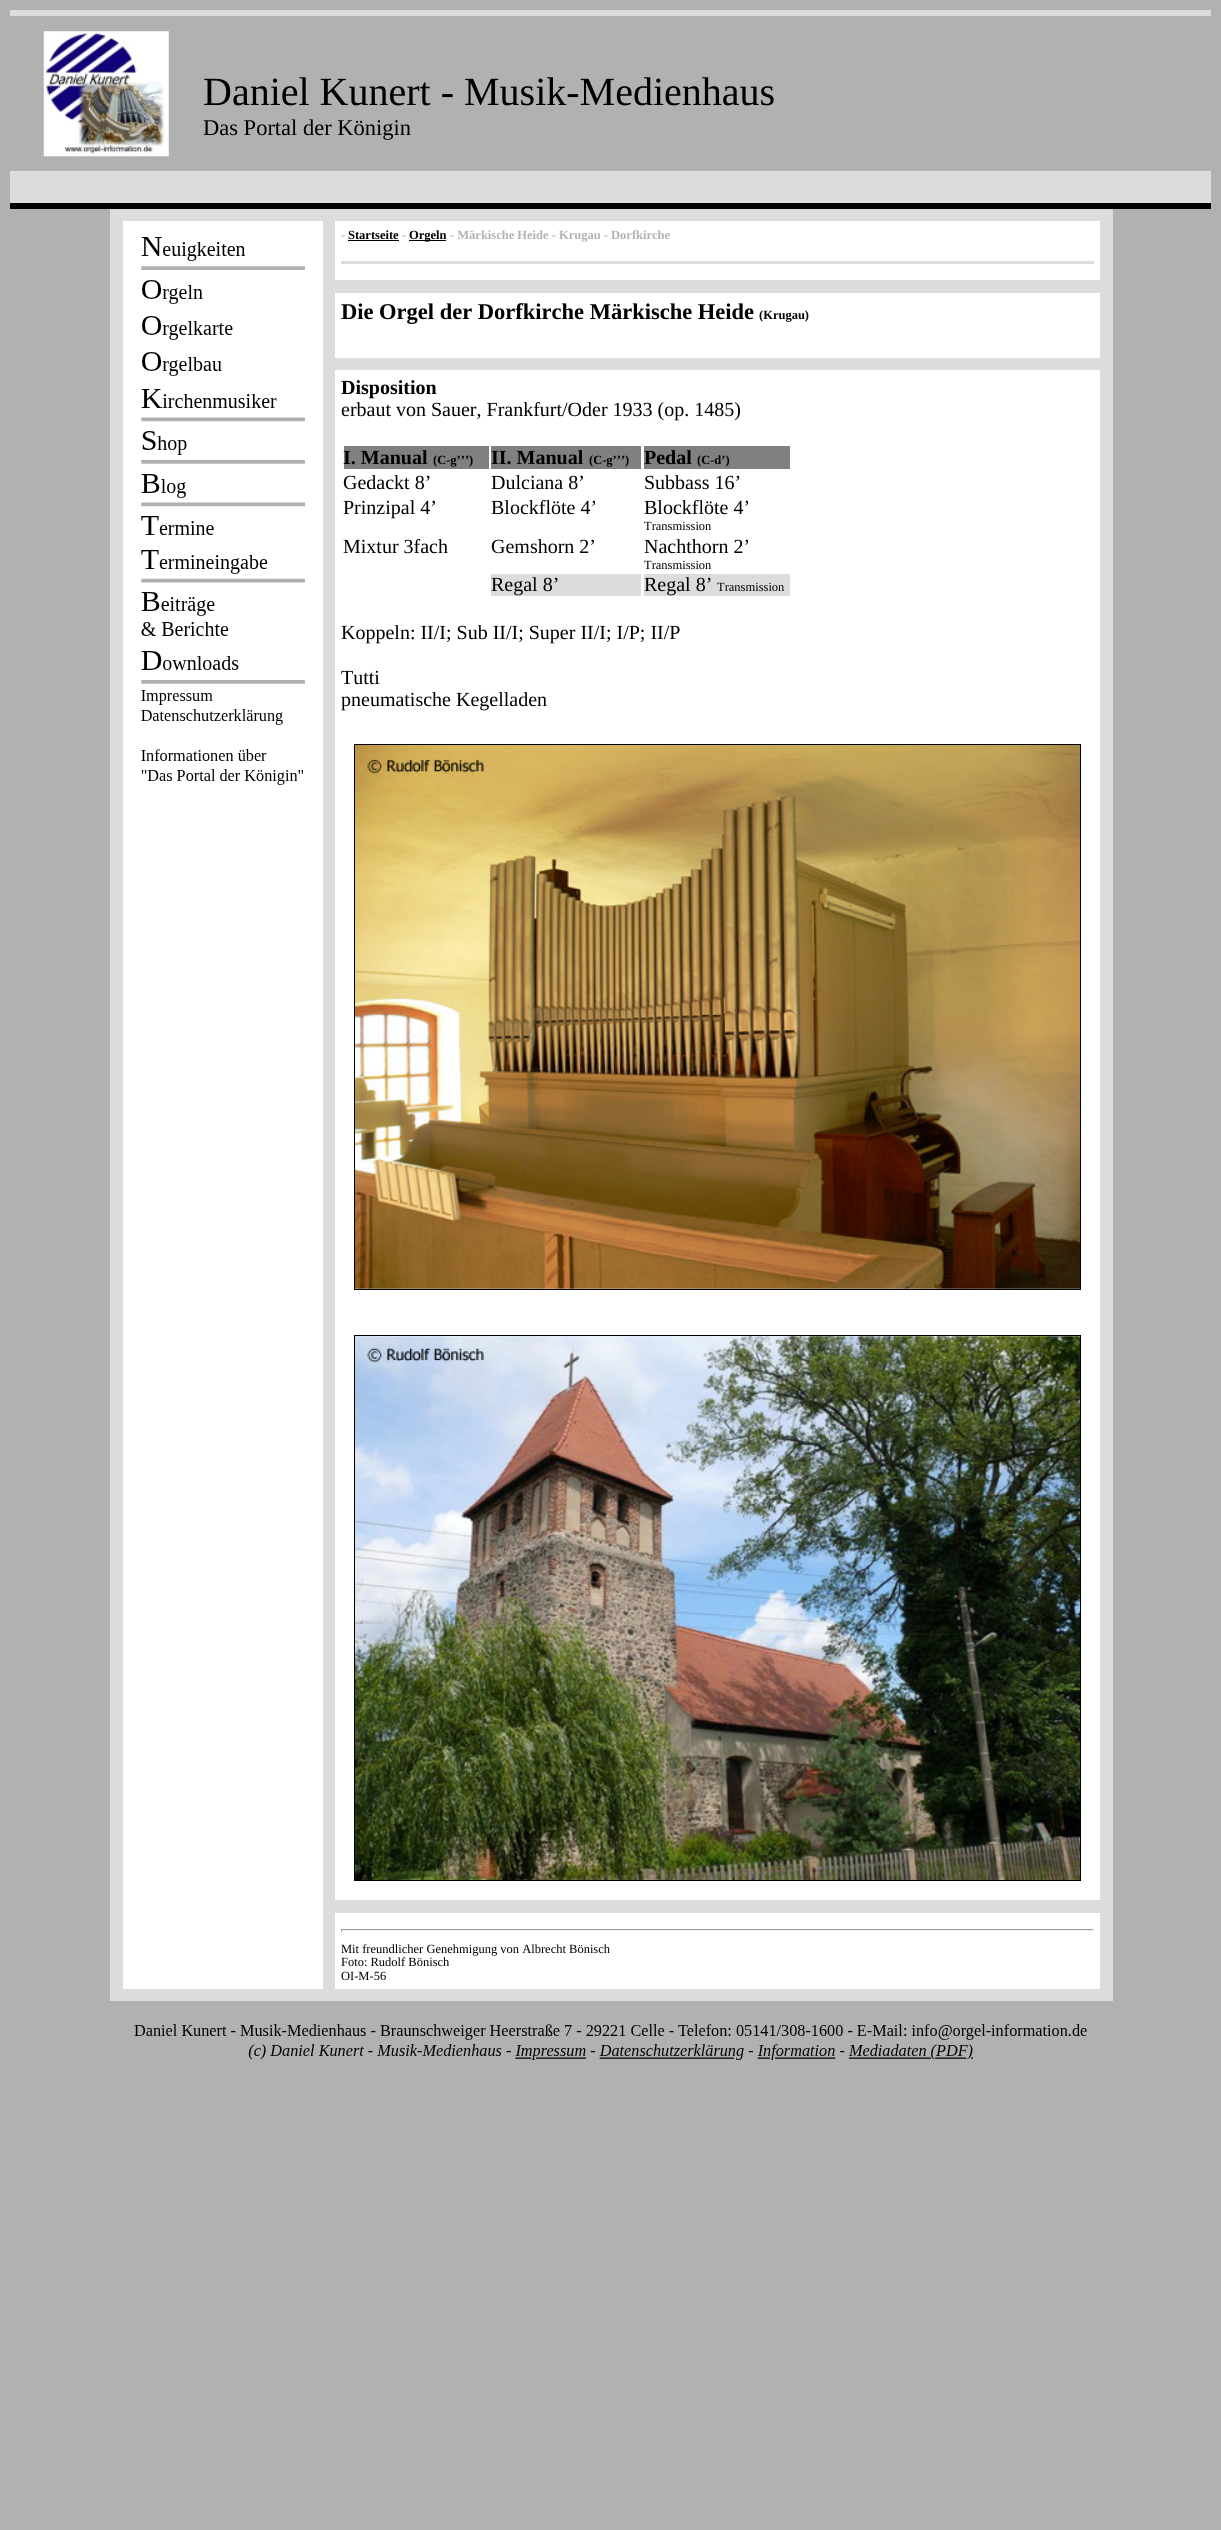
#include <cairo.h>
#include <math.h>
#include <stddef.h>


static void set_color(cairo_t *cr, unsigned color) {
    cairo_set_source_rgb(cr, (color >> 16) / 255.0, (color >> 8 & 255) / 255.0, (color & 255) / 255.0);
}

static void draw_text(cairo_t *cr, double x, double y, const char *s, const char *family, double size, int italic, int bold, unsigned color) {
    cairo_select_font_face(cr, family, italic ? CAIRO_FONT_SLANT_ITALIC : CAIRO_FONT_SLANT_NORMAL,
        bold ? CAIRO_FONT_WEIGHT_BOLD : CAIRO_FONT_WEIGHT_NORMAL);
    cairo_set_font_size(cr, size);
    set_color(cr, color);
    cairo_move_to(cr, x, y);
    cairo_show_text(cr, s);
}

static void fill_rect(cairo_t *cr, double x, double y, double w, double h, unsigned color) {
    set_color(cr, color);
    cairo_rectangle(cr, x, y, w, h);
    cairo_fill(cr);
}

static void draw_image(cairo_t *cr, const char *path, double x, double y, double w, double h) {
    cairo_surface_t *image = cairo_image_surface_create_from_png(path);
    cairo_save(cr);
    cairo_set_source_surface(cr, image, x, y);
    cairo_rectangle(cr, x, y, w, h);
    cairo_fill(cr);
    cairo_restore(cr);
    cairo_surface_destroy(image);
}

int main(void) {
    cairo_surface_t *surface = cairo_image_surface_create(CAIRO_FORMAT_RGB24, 1221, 2530);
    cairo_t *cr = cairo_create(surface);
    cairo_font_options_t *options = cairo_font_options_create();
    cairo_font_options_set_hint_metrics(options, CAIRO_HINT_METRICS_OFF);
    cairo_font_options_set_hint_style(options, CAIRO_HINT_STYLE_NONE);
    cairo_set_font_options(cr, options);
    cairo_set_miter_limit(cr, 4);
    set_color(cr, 0xB1B1B1);
    cairo_paint(cr);
    fill_rect(cr, 10, 10, 1201, 6, 0xDCDCDC);
    draw_image(cr, "assets/img1.png", 43, 31, 126, 126);
    draw_text(cr, 203, 105, "Daniel Kunert - Musik-Medienhaus", "Liberation Serif", 40, 0, 0, 0x000000);
    draw_text(cr, 203, 135, "Das Portal der Königin", "Liberation Serif", 22.5, 0, 0, 0x000000);
    fill_rect(cr, 10, 171, 1201, 32, 0xDCDCDC);
    fill_rect(cr, 10, 203, 1201, 6, 0x000000);
    fill_rect(cr, 110, 209, 1003, 1792, 0xDCDCDC);
    fill_rect(cr, 123, 221, 200, 1768, 0xFFFFFF);
    draw_image(cr, "assets/img2.png", 141, 237, 164, 548);
    fill_rect(cr, 335, 221, 765, 59, 0xFFFFFF);
    draw_text(cr, 341, 239, "-", "Liberation Serif", 12.5, 0, 1, 0xB1B1B1);
    draw_text(cr, 348, 239, "Startseite", "Liberation Serif", 12.5, 0, 1, 0x000000);
    fill_rect(cr, 348, 240, 51, 1, 0x000000);
    draw_text(cr, 402, 239, "-", "Liberation Serif", 12.5, 0, 1, 0xB1B1B1);
    fill_rect(cr, 409, 240, 37, 1, 0x000000);
    draw_text(cr, 409, 239, "Orgeln", "Liberation Serif", 12.5, 0, 1, 0x000000);
    draw_text(cr, 450, 239, "- Märkische Heide - Krugau - Dorfkirche", "Liberation Serif", 12.5, 0, 1, 0xB1B1B1);
    fill_rect(cr, 341, 261, 753, 3, 0xDCDCDC);
    fill_rect(cr, 335, 293, 765, 65, 0xFFFFFF);
    draw_text(cr, 341, 319, "Die Orgel der Dorfkirche Märkische Heide", "Liberation Serif", 22.5, 0, 1, 0x000000);
    draw_text(cr, 759, 319, "(Krugau)", "Liberation Serif", 12.5, 0, 1, 0x000000);
    fill_rect(cr, 335, 370, 765, 1530, 0xFFFFFF);
    draw_text(cr, 341, 394, "Disposition", "Liberation Serif", 20, 0, 1, 0x000000);
    draw_text(cr, 341, 416, "erbaut von Sauer, Frankfurt/Oder 1933 (op. 1485)", "Liberation Serif", 20, 0, 0, 0x000000);
    fill_rect(cr, 344, 446, 145, 23, 0x808080);
    draw_text(cr, 343, 464, "I. Manual", "Liberation Serif", 20, 0, 1, 0x000000);
    draw_text(cr, 433, 464, "(C-g’’’)", "Liberation Serif", 12.5, 0, 1, 0x000000);
    fill_rect(cr, 491, 446, 150, 23, 0x808080);
    draw_text(cr, 491, 464, "II. Manual", "Liberation Serif", 20, 0, 1, 0x000000);
    draw_text(cr, 589, 464, "(C-g’’’)", "Liberation Serif", 12.5, 0, 1, 0x000000);
    fill_rect(cr, 644, 446, 146, 23, 0x808080);
    draw_text(cr, 644, 464, "Pedal", "Liberation Serif", 20, 0, 1, 0x000000);
    draw_text(cr, 697, 464, "(C-d’)", "Liberation Serif", 12.5, 0, 1, 0x000000);
    draw_text(cr, 343, 489, "Gedackt 8’", "Liberation Serif", 20, 0, 0, 0x000000);
    draw_text(cr, 491, 489, "Dulciana 8’", "Liberation Serif", 20, 0, 0, 0x000000);
    draw_text(cr, 644, 489, "Subbass 16’", "Liberation Serif", 20, 0, 0, 0x000000);
    draw_text(cr, 343, 514, "Prinzipal 4’", "Liberation Serif", 20, 0, 0, 0x000000);
    draw_text(cr, 491, 514, "Blockflöte 4’", "Liberation Serif", 20, 0, 0, 0x000000);
    draw_text(cr, 644, 514, "Blockflöte 4’", "Liberation Serif", 20, 0, 0, 0x000000);
    draw_text(cr, 644, 530, "Transmission", "Liberation Serif", 12.5, 0, 0, 0x000000);
    draw_text(cr, 343, 553, "Mixtur 3fach", "Liberation Serif", 20, 0, 0, 0x000000);
    draw_text(cr, 491, 553, "Gemshorn 2’", "Liberation Serif", 20, 0, 0, 0x000000);
    draw_text(cr, 644, 553, "Nachthorn 2’", "Liberation Serif", 20, 0, 0, 0x000000);
    draw_text(cr, 644, 569, "Transmission", "Liberation Serif", 12.5, 0, 0, 0x000000);
    fill_rect(cr, 491, 574, 150, 22, 0xDCDCDC);
    draw_text(cr, 491, 591, "Regal 8’", "Liberation Serif", 20, 0, 0, 0x000000);
    fill_rect(cr, 644, 574, 146, 22, 0xDCDCDC);
    draw_text(cr, 644, 591, "Regal 8’", "Liberation Serif", 20, 0, 0, 0x000000);
    draw_text(cr, 717, 591, "Transmission", "Liberation Serif", 12.5, 0, 0, 0x000000);
    draw_text(cr, 341, 639, "Koppeln: II/I; Sub II/I; Super II/I; I/P; II/P", "Liberation Serif", 20, 0, 0, 0x000000);
    draw_text(cr, 341, 684, "Tutti", "Liberation Serif", 20, 0, 0, 0x000000);
    draw_text(cr, 341, 706, "pneumatische Kegelladen", "Liberation Serif", 20, 0, 0, 0x000000);
    cairo_rectangle(cr, 354.5, 744.5, 726, 545);
    cairo_set_line_width(cr, 1);
    cairo_stroke(cr);
    draw_image(cr, "assets/img3.png", 355, 745, 725, 544);
    cairo_rectangle(cr, 354.5, 1335.5, 726, 545);
    cairo_stroke(cr);
    draw_image(cr, "assets/img4.png", 355, 1336, 725, 544);
    fill_rect(cr, 335, 1913, 765, 76, 0xFFFFFF);
    fill_rect(cr, 341, 1929, 753, 1, 0x9F9F9F);
    fill_rect(cr, 1093, 1929, 1, 3, 0xEEEEEE);
    fill_rect(cr, 341, 1930, 753, 1, 0xEEEEEE);
    fill_rect(cr, 341, 1929, 1, 3, 0x9F9F9F);
    draw_text(cr, 341, 1953, "Mit freundlicher Genehmigung von Albrecht Bönisch", "Liberation Serif", 12.5, 0, 0, 0x000000);
    draw_text(cr, 341, 1966, "Foto: Rudolf Bönisch", "Liberation Serif", 12.5, 0, 0, 0x000000);
    draw_text(cr, 341, 1980, "OI-M-56", "Liberation Serif", 12.5, 0, 0, 0x000000);
    draw_image(cr, "assets/img5.png", 134, 2024, 953, 36);
    cairo_surface_write_to_png(surface, "output.png");
    cairo_font_options_destroy(options);
    cairo_destroy(cr);
    cairo_surface_destroy(surface);
    return 0;
}
